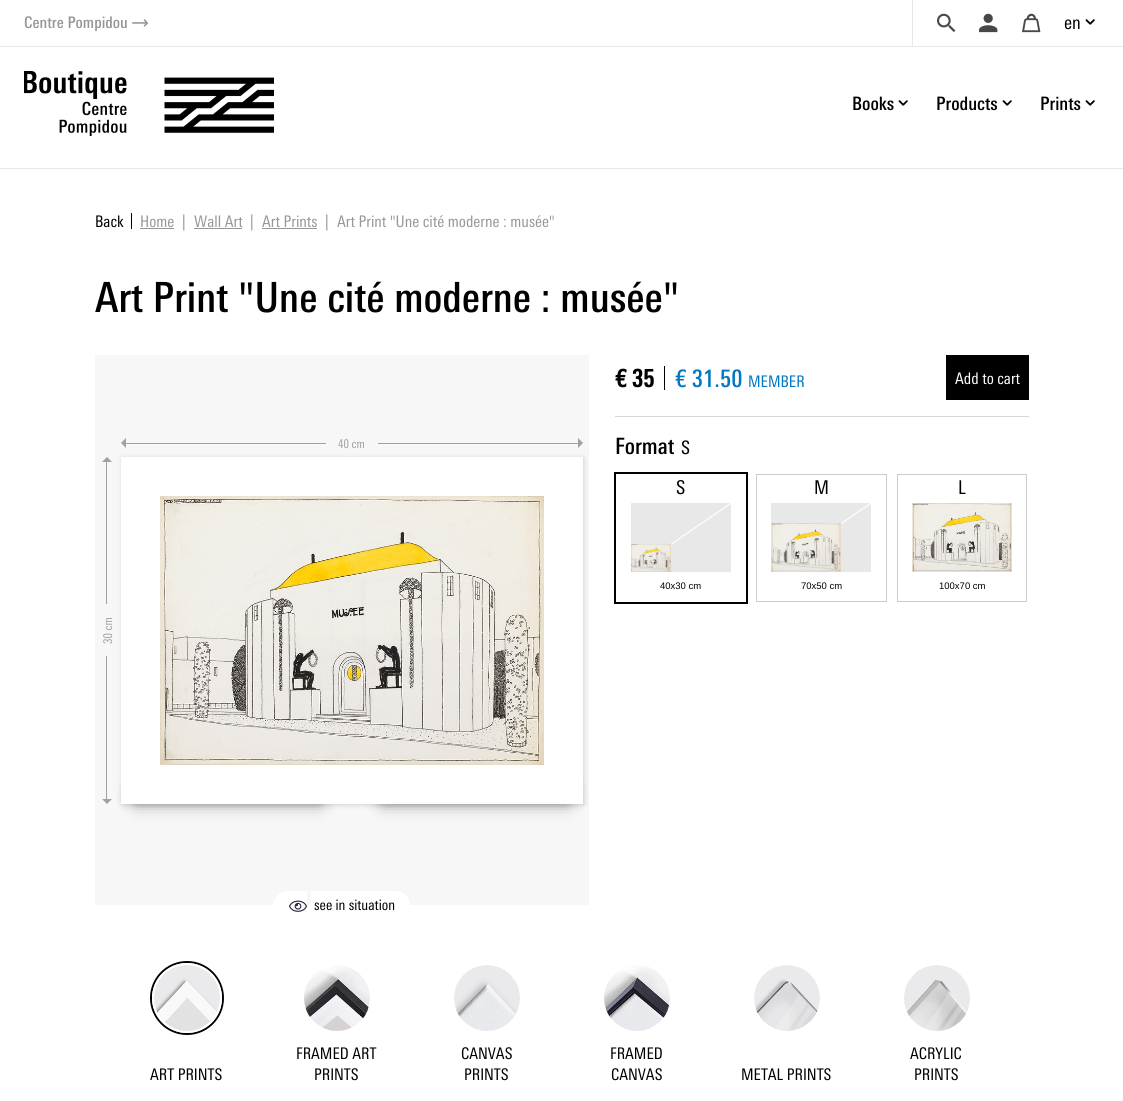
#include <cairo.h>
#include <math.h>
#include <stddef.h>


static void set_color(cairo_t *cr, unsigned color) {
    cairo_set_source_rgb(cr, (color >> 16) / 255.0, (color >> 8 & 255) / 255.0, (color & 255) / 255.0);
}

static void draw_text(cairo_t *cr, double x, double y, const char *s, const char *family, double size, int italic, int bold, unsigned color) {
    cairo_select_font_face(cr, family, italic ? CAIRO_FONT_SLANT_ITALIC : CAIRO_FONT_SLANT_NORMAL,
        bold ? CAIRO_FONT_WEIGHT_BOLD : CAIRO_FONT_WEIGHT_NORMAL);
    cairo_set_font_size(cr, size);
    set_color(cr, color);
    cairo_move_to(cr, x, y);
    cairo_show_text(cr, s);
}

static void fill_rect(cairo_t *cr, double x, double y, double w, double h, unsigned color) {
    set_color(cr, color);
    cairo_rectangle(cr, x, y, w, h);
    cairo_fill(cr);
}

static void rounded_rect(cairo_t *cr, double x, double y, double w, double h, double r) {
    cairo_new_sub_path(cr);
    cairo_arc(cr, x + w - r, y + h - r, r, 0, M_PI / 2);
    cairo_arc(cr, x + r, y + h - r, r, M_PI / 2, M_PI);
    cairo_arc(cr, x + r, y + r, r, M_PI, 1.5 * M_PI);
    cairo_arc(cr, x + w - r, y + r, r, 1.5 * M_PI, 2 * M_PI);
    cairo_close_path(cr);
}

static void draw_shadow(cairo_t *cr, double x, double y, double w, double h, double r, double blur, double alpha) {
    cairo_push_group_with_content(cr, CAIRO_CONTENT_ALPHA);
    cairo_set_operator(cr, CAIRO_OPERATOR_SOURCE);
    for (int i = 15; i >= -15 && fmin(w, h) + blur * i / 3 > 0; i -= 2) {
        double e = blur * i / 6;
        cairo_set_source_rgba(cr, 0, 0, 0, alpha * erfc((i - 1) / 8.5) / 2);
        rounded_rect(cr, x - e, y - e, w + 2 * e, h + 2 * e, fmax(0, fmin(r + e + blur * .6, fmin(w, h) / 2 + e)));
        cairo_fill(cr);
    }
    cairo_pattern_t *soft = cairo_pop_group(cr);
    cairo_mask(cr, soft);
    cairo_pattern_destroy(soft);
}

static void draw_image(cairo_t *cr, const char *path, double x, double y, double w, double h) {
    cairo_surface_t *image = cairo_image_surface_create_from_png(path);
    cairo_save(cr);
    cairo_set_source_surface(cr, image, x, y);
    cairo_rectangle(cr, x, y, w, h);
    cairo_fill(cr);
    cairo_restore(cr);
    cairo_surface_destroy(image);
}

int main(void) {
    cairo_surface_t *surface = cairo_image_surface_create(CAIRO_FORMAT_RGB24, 1123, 1101);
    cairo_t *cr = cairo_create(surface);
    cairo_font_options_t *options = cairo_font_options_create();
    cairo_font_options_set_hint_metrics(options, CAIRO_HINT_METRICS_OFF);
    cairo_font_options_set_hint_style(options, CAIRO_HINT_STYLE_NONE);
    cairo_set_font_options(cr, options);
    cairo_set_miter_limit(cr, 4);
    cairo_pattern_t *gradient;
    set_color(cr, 0xFFFFFF);
    cairo_paint(cr);
    fill_rect(cr, 0, 46, 1123, 1, 0xE8E8E8);
    draw_text(cr, 24, 28, "Centre Pompidou", "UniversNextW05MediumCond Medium", 16, 0, 0, 0x979797);
    draw_image(cr, "assets/img1.png", 132, 19, 16, 8);
    fill_rect(cr, 912, 0, 1, 46, 0xE8E8E8);
    draw_image(cr, "assets/img2.png", 937, 13, 19, 20);
    draw_image(cr, "assets/img3.png", 979, 13, 19, 20);
    draw_image(cr, "assets/img4.png", 1022, 13, 19, 20);
    draw_text(cr, 1064, 29, "en", "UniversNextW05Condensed", 18.5, 0, 0, 0x000000);
    draw_image(cr, "assets/img5.png", 1085, 19, 10, 6);
    draw_image(cr, "assets/img6.png", 24, 71, 250, 65);
    draw_text(cr, 852, 110, "Books", "UniversNextW05MediumCond Medium", 18.5, 0, 0, 0x000000);
    draw_image(cr, "assets/img5.png", 898, 100, 10, 6);
    draw_text(cr, 936, 110, "Products", "UniversNextW05MediumCond Medium", 18.5, 0, 0, 0x000000);
    draw_image(cr, "assets/img5.png", 1002, 100, 10, 6);
    draw_text(cr, 1040, 110, "Prints", "UniversNextW05MediumCond Medium", 18.5, 0, 0, 0x000000);
    draw_image(cr, "assets/img5.png", 1085, 100, 10, 6);
    fill_rect(cr, 0, 168, 1123, 1, 0xE8E8E8);
    draw_text(cr, 95, 227, "Back", "UniversNextW05Condensed", 16, 0, 0, 0x000000);
    fill_rect(cr, 131, 213, 1, 16, 0x000000);
    draw_text(cr, 140, 227, "Home", "UniversNextW05Condensed", 16, 0, 0, 0x979797);
    fill_rect(cr, 140, 228, 34, 1, 0x979797);
    draw_text(cr, 182, 227, "|", "UniversNextW05Condensed", 16, 0, 0, 0x979797);
    draw_text(cr, 194, 227, "Wall Art", "UniversNextW05Condensed", 16, 0, 0, 0x979797);
    fill_rect(cr, 194, 228, 48, 1, 0x979797);
    draw_text(cr, 250, 227, "|", "UniversNextW05Condensed", 16, 0, 0, 0x979797);
    draw_text(cr, 262, 227, "Art Prints", "UniversNextW05Condensed", 16, 0, 0, 0x979797);
    fill_rect(cr, 262, 228, 55, 1, 0x979797);
    draw_text(cr, 325, 227, "|", "UniversNextW05Condensed", 16, 0, 0, 0x979797);
    draw_text(cr, 337, 227, "Art Print \"Une cité moderne : musée\"", "UniversNextW05Condensed", 16, 0, 0, 0x979797);
    draw_text(cr, 95, 312, "Art Print \"Une cité moderne : musée\"", "UniversNextW05MediumCond Medium", 41.6, 0, 0, 0x000000);
    fill_rect(cr, 95, 355, 494, 550, 0xF7F7F7);
    set_color(cr, 0xA1A1A1);
    cairo_new_path(cr);
    cairo_move_to(cr, 126, 438);
    cairo_line_to(cr, 126, 448);
    cairo_line_to(cr, 121, 443);
    cairo_close_path(cr);
    cairo_fill(cr);
    fill_rect(cr, 126, 443, 200, 1, 0xA1A1A1);
    draw_text(cr, 338, 448, "40 cm", "UniversNextW05Condensed", 12, 0, 0, 0xA1A1A1);
    fill_rect(cr, 378, 443, 200, 1, 0xA1A1A1);
    cairo_new_path(cr);
    cairo_move_to(cr, 578, 448);
    cairo_line_to(cr, 578, 438);
    cairo_line_to(cr, 583, 443);
    cairo_close_path(cr);
    cairo_fill(cr);
    cairo_new_path(cr);
    cairo_move_to(cr, 112, 462);
    cairo_line_to(cr, 102, 462);
    cairo_line_to(cr, 107, 457);
    cairo_close_path(cr);
    cairo_fill(cr);
    fill_rect(cr, 106, 462, 1, 142, 0xA1A1A1);
    cairo_save(cr);
    cairo_translate(cr, 112, 644);
    cairo_rotate(cr, -90 * M_PI / 180);
    draw_text(cr, 0, 0, "30 cm", "UniversNextW05Condensed", 12, 0, 0, 0xA1A1A1);
    cairo_restore(cr);
    fill_rect(cr, 106, 656, 1, 143, 0xA1A1A1);
    set_color(cr, 0x000000);
    draw_shadow(cr, 136, 790, 184, 10, 0, 9, 0.7);
    set_color(cr, 0xA1A1A1);
    cairo_new_path(cr);
    cairo_move_to(cr, 102, 799);
    cairo_line_to(cr, 112, 799);
    cairo_line_to(cr, 107, 804);
    cairo_close_path(cr);
    cairo_fill(cr);
    set_color(cr, 0x3C3C3C);
    draw_shadow(cr, 122, 458, 462, 347, 0, 2.5, 0.2);
    set_color(cr, 0x000000);
    draw_shadow(cr, 383, 790, 185, 10, 0, 9, 0.7);
    fill_rect(cr, 121, 457, 462, 347, 0xFFFFFF);
    draw_image(cr, "assets/img7.png", 160, 496, 384, 269);
    cairo_new_path(cr);
    cairo_move_to(cr, 288.5, 891);
    cairo_line_to(cr, 307, 891);
    cairo_line_to(cr, 307, 922);
    cairo_line_to(cr, 288.5, 922);
    cairo_curve_to(cr, 280, 922, 273, 915, 273, 906.5);
    cairo_curve_to(cr, 273, 898, 280, 891, 288.5, 891);
    cairo_close_path(cr);
    cairo_fill(cr);
    draw_image(cr, "assets/img8.png", 289, 900, 18, 12);
    cairo_new_path(cr);
    cairo_move_to(cr, 311, 891);
    cairo_line_to(cr, 396, 891);
    cairo_curve_to(cr, 403.5, 891, 410, 897.5, 410, 905);
    cairo_curve_to(cr, 410, 912.5, 403.5, 919, 396, 919);
    cairo_line_to(cr, 311, 919);
    cairo_close_path(cr);
    cairo_fill(cr);
    draw_text(cr, 314, 910, "see in situation", "UniversNextW05Condensed", 14.5, 0, 0, 0x000000);
    draw_text(cr, 615, 387, "€ 35", "UniversNextW05MediumCond", 24, 0, 1, 0x000000);
    fill_rect(cr, 664, 366, 1, 24, 0x000000);
    draw_text(cr, 675, 387, "€ 31.50", "UniversNextW05MediumCond Medium", 24, 0, 0, 0x0078C2);
    draw_text(cr, 748, 387, "MEMBER", "UniversNextW05Condensed", 16, 0, 0, 0x0078C2);
    fill_rect(cr, 946, 355, 83, 45, 0x000000);
    draw_text(cr, 955, 384, "Add to cart", "UniversNextW05Condensed", 16, 0, 0, 0xFFFFFF);
    fill_rect(cr, 615, 416, 414, 1, 0xD8D8D8);
    draw_text(cr, 615, 454, "Format", "UniversNextW05MediumCond Medium", 22.5, 0, 0, 0x000000);
    draw_text(cr, 681, 454, "S", "UniversNextW05Condensed", 18.5, 0, 0, 0x000000);
    cairo_rectangle(cr, 615, 473, 132, 130);
    cairo_stroke(cr);
    draw_text(cr, 676, 494, "S", "UniversNextW05Condensed", 19, 0, 0, 0x000000);
    gradient = cairo_pattern_create_linear(713, 584, 649, 491);
    cairo_pattern_add_color_stop_rgba(gradient, 0, 0.91, 0.91, 0.91, 1);
    cairo_pattern_add_color_stop_rgba(gradient, 0.49, 0.91, 0.91, 0.91, 1);
    cairo_pattern_add_color_stop_rgba(gradient, 0.5, 1, 1, 1, 1);
    cairo_pattern_add_color_stop_rgba(gradient, 0.51, 0.91, 0.91, 0.91, 1);
    cairo_pattern_add_color_stop_rgba(gradient, 1, 0.91, 0.91, 0.91, 1);
    cairo_set_source(cr, gradient);
    cairo_pattern_destroy(gradient);
    cairo_rectangle(cr, 631, 503, 100, 69);
    cairo_fill(cr);
    draw_image(cr, "assets/img9.png", 631, 544, 40, 28);
    draw_text(cr, 660, 589, "40x30 cm", "Liberation Sans", 9.5, 0, 0, 0x000000);
    cairo_rectangle(cr, 756.5, 474.5, 130, 127);
    set_color(cr, 0xCCCCCC);
    cairo_set_line_width(cr, 1);
    cairo_stroke(cr);
    draw_text(cr, 814, 494, "M", "UniversNextW05Condensed", 19, 0, 0, 0x000000);
    gradient = cairo_pattern_create_linear(853, 584, 789, 491);
    cairo_pattern_add_color_stop_rgba(gradient, 0, 0.91, 0.91, 0.91, 1);
    cairo_pattern_add_color_stop_rgba(gradient, 0.49, 0.91, 0.91, 0.91, 1);
    cairo_pattern_add_color_stop_rgba(gradient, 0.5, 1, 1, 1, 1);
    cairo_pattern_add_color_stop_rgba(gradient, 0.51, 0.91, 0.91, 0.91, 1);
    cairo_pattern_add_color_stop_rgba(gradient, 1, 0.91, 0.91, 0.91, 1);
    cairo_set_source(cr, gradient);
    cairo_pattern_destroy(gradient);
    cairo_rectangle(cr, 771, 503, 100, 69);
    cairo_fill(cr);
    draw_image(cr, "assets/img10.png", 771, 523, 70, 49);
    draw_text(cr, 801, 589, "70x50 cm", "Liberation Sans", 9.5, 0, 0, 0x000000);
    cairo_rectangle(cr, 897.5, 474.5, 129, 127);
    set_color(cr, 0xCCCCCC);
    cairo_stroke(cr);
    draw_text(cr, 958, 494, "L", "UniversNextW05Condensed", 19, 0, 0, 0x000000);
    draw_image(cr, "assets/img11.png", 912, 503, 100, 69);
    draw_text(cr, 939, 589, "100x70 cm", "Liberation Sans", 9.5, 0, 0, 0x000000);
    cairo_new_path(cr);
    cairo_arc(cr, 187, 998, 36, 0, 2 * M_PI);
    cairo_set_line_width(cr, 2);
    cairo_stroke(cr);
    cairo_arc(cr, 187, 998, 34, 0, 2 * M_PI);
    set_color(cr, 0xFFFFFF);
    cairo_stroke(cr);
    draw_image(cr, "assets/img12.png", 154, 965, 66, 66);
    draw_text(cr, 150, 1080, "ART PRINTS", "UniversNextW05Condensed", 16, 0, 0, 0x000000);
    draw_image(cr, "assets/img13.png", 304, 965, 66, 66);
    draw_text(cr, 296, 1059, "FRAMED ART", "UniversNextW05Condensed", 16, 0, 0, 0x000000);
    draw_text(cr, 314, 1080, "PRINTS", "UniversNextW05Condensed", 16, 0, 0, 0x000000);
    draw_image(cr, "assets/img14.png", 454, 965, 66, 66);
    draw_text(cr, 461, 1059, "CANVAS", "UniversNextW05Condensed", 16, 0, 0, 0x000000);
    draw_text(cr, 464, 1080, "PRINTS", "UniversNextW05Condensed", 16, 0, 0, 0x000000);
    draw_image(cr, "assets/img15.png", 604, 965, 66, 66);
    draw_text(cr, 610, 1059, "FRAMED", "UniversNextW05Condensed", 16, 0, 0, 0x000000);
    draw_text(cr, 611, 1080, "CANVAS", "UniversNextW05Condensed", 16, 0, 0, 0x000000);
    draw_image(cr, "assets/img16.png", 754, 965, 66, 66);
    draw_text(cr, 741, 1080, "METAL PRINTS", "UniversNextW05Condensed", 16, 0, 0, 0x000000);
    draw_image(cr, "assets/img17.png", 904, 965, 66, 66);
    draw_text(cr, 910, 1059, "ACRYLIC", "UniversNextW05Condensed", 16, 0, 0, 0x000000);
    draw_text(cr, 914, 1080, "PRINTS", "UniversNextW05Condensed", 16, 0, 0, 0x000000);
    cairo_surface_write_to_png(surface, "output.png");
    cairo_font_options_destroy(options);
    cairo_destroy(cr);
    cairo_surface_destroy(surface);
    return 0;
}
